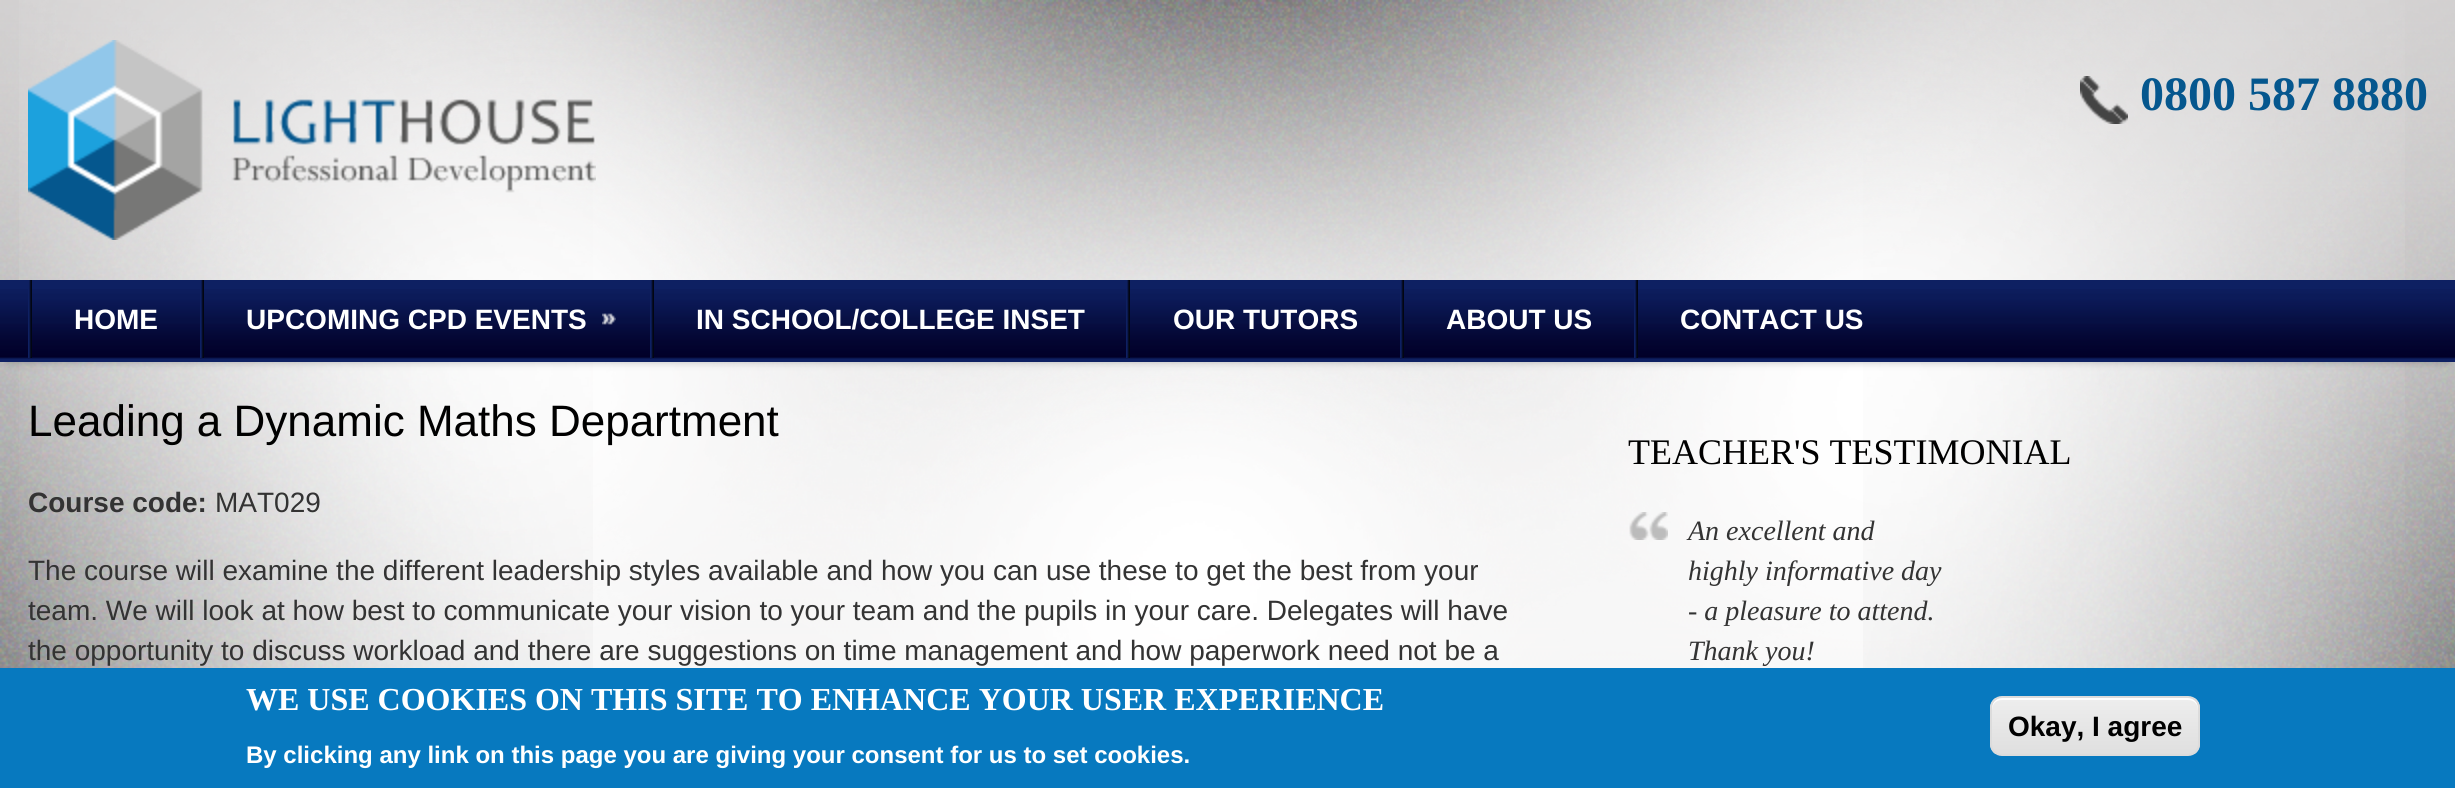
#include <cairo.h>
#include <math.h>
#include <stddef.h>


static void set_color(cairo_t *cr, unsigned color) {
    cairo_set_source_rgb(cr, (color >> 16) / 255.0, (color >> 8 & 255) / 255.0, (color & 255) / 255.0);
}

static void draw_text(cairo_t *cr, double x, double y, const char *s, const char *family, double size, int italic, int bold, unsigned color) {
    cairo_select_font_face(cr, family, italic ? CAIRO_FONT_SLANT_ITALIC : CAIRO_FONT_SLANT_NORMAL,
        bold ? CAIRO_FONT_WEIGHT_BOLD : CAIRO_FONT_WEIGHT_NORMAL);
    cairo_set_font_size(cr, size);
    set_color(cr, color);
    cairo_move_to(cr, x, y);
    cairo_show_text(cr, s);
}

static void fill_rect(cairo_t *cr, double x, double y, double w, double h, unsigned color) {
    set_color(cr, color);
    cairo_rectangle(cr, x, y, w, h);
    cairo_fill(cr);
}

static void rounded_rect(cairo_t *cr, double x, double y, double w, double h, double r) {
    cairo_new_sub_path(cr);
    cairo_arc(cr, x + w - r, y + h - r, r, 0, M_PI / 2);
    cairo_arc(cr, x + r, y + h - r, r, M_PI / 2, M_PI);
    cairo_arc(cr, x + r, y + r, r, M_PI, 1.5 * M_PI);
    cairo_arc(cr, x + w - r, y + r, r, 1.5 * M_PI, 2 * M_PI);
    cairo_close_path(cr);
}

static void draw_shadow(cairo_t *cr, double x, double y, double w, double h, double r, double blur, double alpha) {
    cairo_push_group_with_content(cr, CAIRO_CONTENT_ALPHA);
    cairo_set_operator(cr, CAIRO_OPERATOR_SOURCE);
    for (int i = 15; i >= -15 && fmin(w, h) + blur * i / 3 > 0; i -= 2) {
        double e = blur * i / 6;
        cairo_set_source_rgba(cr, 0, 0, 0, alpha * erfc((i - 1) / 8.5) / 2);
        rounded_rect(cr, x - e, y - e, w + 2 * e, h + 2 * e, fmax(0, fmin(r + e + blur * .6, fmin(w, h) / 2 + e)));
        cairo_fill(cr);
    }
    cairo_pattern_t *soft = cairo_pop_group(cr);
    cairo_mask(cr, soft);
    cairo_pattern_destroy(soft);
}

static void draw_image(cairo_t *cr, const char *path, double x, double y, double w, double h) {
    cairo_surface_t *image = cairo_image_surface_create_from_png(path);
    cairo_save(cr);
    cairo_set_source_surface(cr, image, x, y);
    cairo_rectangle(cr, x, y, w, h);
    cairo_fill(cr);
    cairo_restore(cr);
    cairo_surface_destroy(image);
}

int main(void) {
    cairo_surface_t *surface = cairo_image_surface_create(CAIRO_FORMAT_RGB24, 2455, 788);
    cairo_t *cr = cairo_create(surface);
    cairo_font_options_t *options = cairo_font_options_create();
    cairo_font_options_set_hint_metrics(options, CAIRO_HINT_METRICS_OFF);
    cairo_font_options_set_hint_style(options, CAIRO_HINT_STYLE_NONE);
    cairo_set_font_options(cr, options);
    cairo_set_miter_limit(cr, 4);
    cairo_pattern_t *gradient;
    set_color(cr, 0xFFFFFF);
    cairo_paint(cr);
    draw_image(cr, "assets/img1.png", 0, 0, 2455, 668);
    draw_image(cr, "assets/img2.png", 19, 0, 2386, 668);
    draw_image(cr, "assets/img3.png", 0, 0, 593, 668);
    draw_image(cr, "assets/img4.png", 1863, 0, 592, 668);
    draw_image(cr, "assets/img5.png", 28, 40, 568, 200);
    draw_image(cr, "assets/img6.png", 2080, 76, 48, 48);
    draw_text(cr, 2140, 110, "0800 587 8880", "Liberation Serif", 48, 0, 1, 0x05578E);
    set_color(cr, 0x000000);
    draw_shadow(cr, 8, 296, 2440, 66, 0, 4, 0.25);
    fill_rect(cr, 0, 280, 2455, 82, 0x0E2062);
    draw_image(cr, "assets/img7.png", 0, 289, 2455, 70);
    draw_image(cr, "assets/img8.png", 28, 280, 4, 78);
    draw_text(cr, 74, 329, "HOME", "Liberation Sans", 28, 0, 1, 0xFFFFFF);
    draw_image(cr, "assets/img8.png", 200, 280, 4, 78);
    draw_text(cr, 246, 329, "UPCOMING CPD EVENTS", "Liberation Sans", 28, 0, 1, 0xFFFFFF);
    draw_image(cr, "assets/img9.png", 602, 313, 14, 12);
    draw_image(cr, "assets/img8.png", 650, 280, 4, 78);
    draw_text(cr, 696, 329, "IN SCHOOL/COLLEGE INSET", "Liberation Sans", 28, 0, 1, 0xFFFFFF);
    draw_image(cr, "assets/img8.png", 1126, 280, 4, 78);
    draw_text(cr, 1173, 329, "OUR TUTORS", "Liberation Sans", 28, 0, 1, 0xFFFFFF);
    draw_image(cr, "assets/img8.png", 1400, 280, 4, 78);
    draw_text(cr, 1446, 329, "ABOUT US", "Liberation Sans", 28, 0, 1, 0xFFFFFF);
    draw_image(cr, "assets/img8.png", 1634, 280, 4, 78);
    draw_text(cr, 1680, 329, "CONTACT US", "Liberation Sans", 28, 0, 1, 0xFFFFFF);
    draw_text(cr, 28, 436, "Leading a Dynamic Maths Department", "Liberation Sans", 44, 0, 0, 0x000000);
    draw_text(cr, 28, 512, "Course code:", "Liberation Sans", 28, 0, 1, 0x333333);
    draw_text(cr, 215, 512, "MAT029", "Liberation Sans", 28, 0, 0, 0x333333);
    draw_text(cr, 28, 580, "The course will examine the different leadership styles available and how you can use these to get the best from your", "Liberation Sans", 28, 0, 0, 0x333333);
    draw_text(cr, 28, 620, "team. We will look at how best to communicate your vision to your team and the pupils in your care. Delegates will have", "Liberation Sans", 28, 0, 0, 0x333333);
    draw_text(cr, 28, 660, "the opportunity to discuss workload and there are suggestions on time management and how paperwork need not be a", "Liberation Sans", 28, 0, 0, 0x333333);
    draw_text(cr, 1628, 464, "TEACHER'S TESTIMONIAL", "Liberation Serif", 36, 0, 0, 0x000000);
    draw_image(cr, "assets/img10.png", 1629, 512, 39, 28);
    draw_text(cr, 1688, 540, "An excellent and", "Liberation Serif", 28, 1, 0, 0x333333);
    draw_text(cr, 1688, 580, "highly informative day", "Liberation Serif", 28, 1, 0, 0x333333);
    draw_text(cr, 1688, 620, "- a pleasure to attend.", "Liberation Serif", 28, 1, 0, 0x333333);
    draw_text(cr, 1688, 660, "Thank you!", "Liberation Serif", 28, 1, 0, 0x333333);
    fill_rect(cr, 0, 668, 2455, 120, 0x0779BF);
    draw_text(cr, 246, 710, "WE USE COOKIES ON THIS SITE TO ENHANCE YOUR USER EXPERIENCE", "Liberation Serif", 32, 0, 1, 0xFFFFFF);
    draw_text(cr, 246, 763, "By clicking any link on this page you are giving your consent for us to set cookies.", "Liberation Sans", 24, 0, 1, 0xFFFFFF);
    cairo_save(cr);
    rounded_rect(cr, 1990, 696, 210, 60, 12);
    cairo_clip(cr);
    gradient = cairo_pattern_create_linear(2095, 698, 2095, 754);
    cairo_pattern_add_color_stop_rgba(gradient, 0.05, 0.929, 0.929, 0.929, 1);
    cairo_pattern_add_color_stop_rgba(gradient, 1, 0.875, 0.875, 0.875, 1);
    cairo_set_source(cr, gradient);
    cairo_pattern_destroy(gradient);
    cairo_rectangle(cr, 1990, 698, 210, 56);
    cairo_fill(cr);
    cairo_restore(cr);
    cairo_new_path(cr);
    cairo_move_to(cr, 2002, 700);
    cairo_line_to(cr, 2188, 700);
    cairo_curve_to(cr, 2194, 700, 2198, 704, 2198, 710);
    cairo_line_to(cr, 2198, 708);
    cairo_curve_to(cr, 2198, 702, 2194, 698, 2188, 698);
    cairo_line_to(cr, 2002, 698);
    cairo_curve_to(cr, 1996, 698, 1992, 702, 1992, 708);
    cairo_line_to(cr, 1992, 710);
    cairo_curve_to(cr, 1992, 704, 1996, 700, 2002, 700);
    cairo_close_path(cr);
    cairo_fill(cr);
    rounded_rect(cr, 1991, 697, 208, 58, 11);
    set_color(cr, 0xDCDCDC);
    cairo_stroke(cr);
    draw_text(cr, 2008, 736, "Okay, I agree", "Liberation Sans", 28, 0, 1, 0x000000);
    cairo_surface_write_to_png(surface, "output.png");
    cairo_font_options_destroy(options);
    cairo_destroy(cr);
    cairo_surface_destroy(surface);
    return 0;
}
